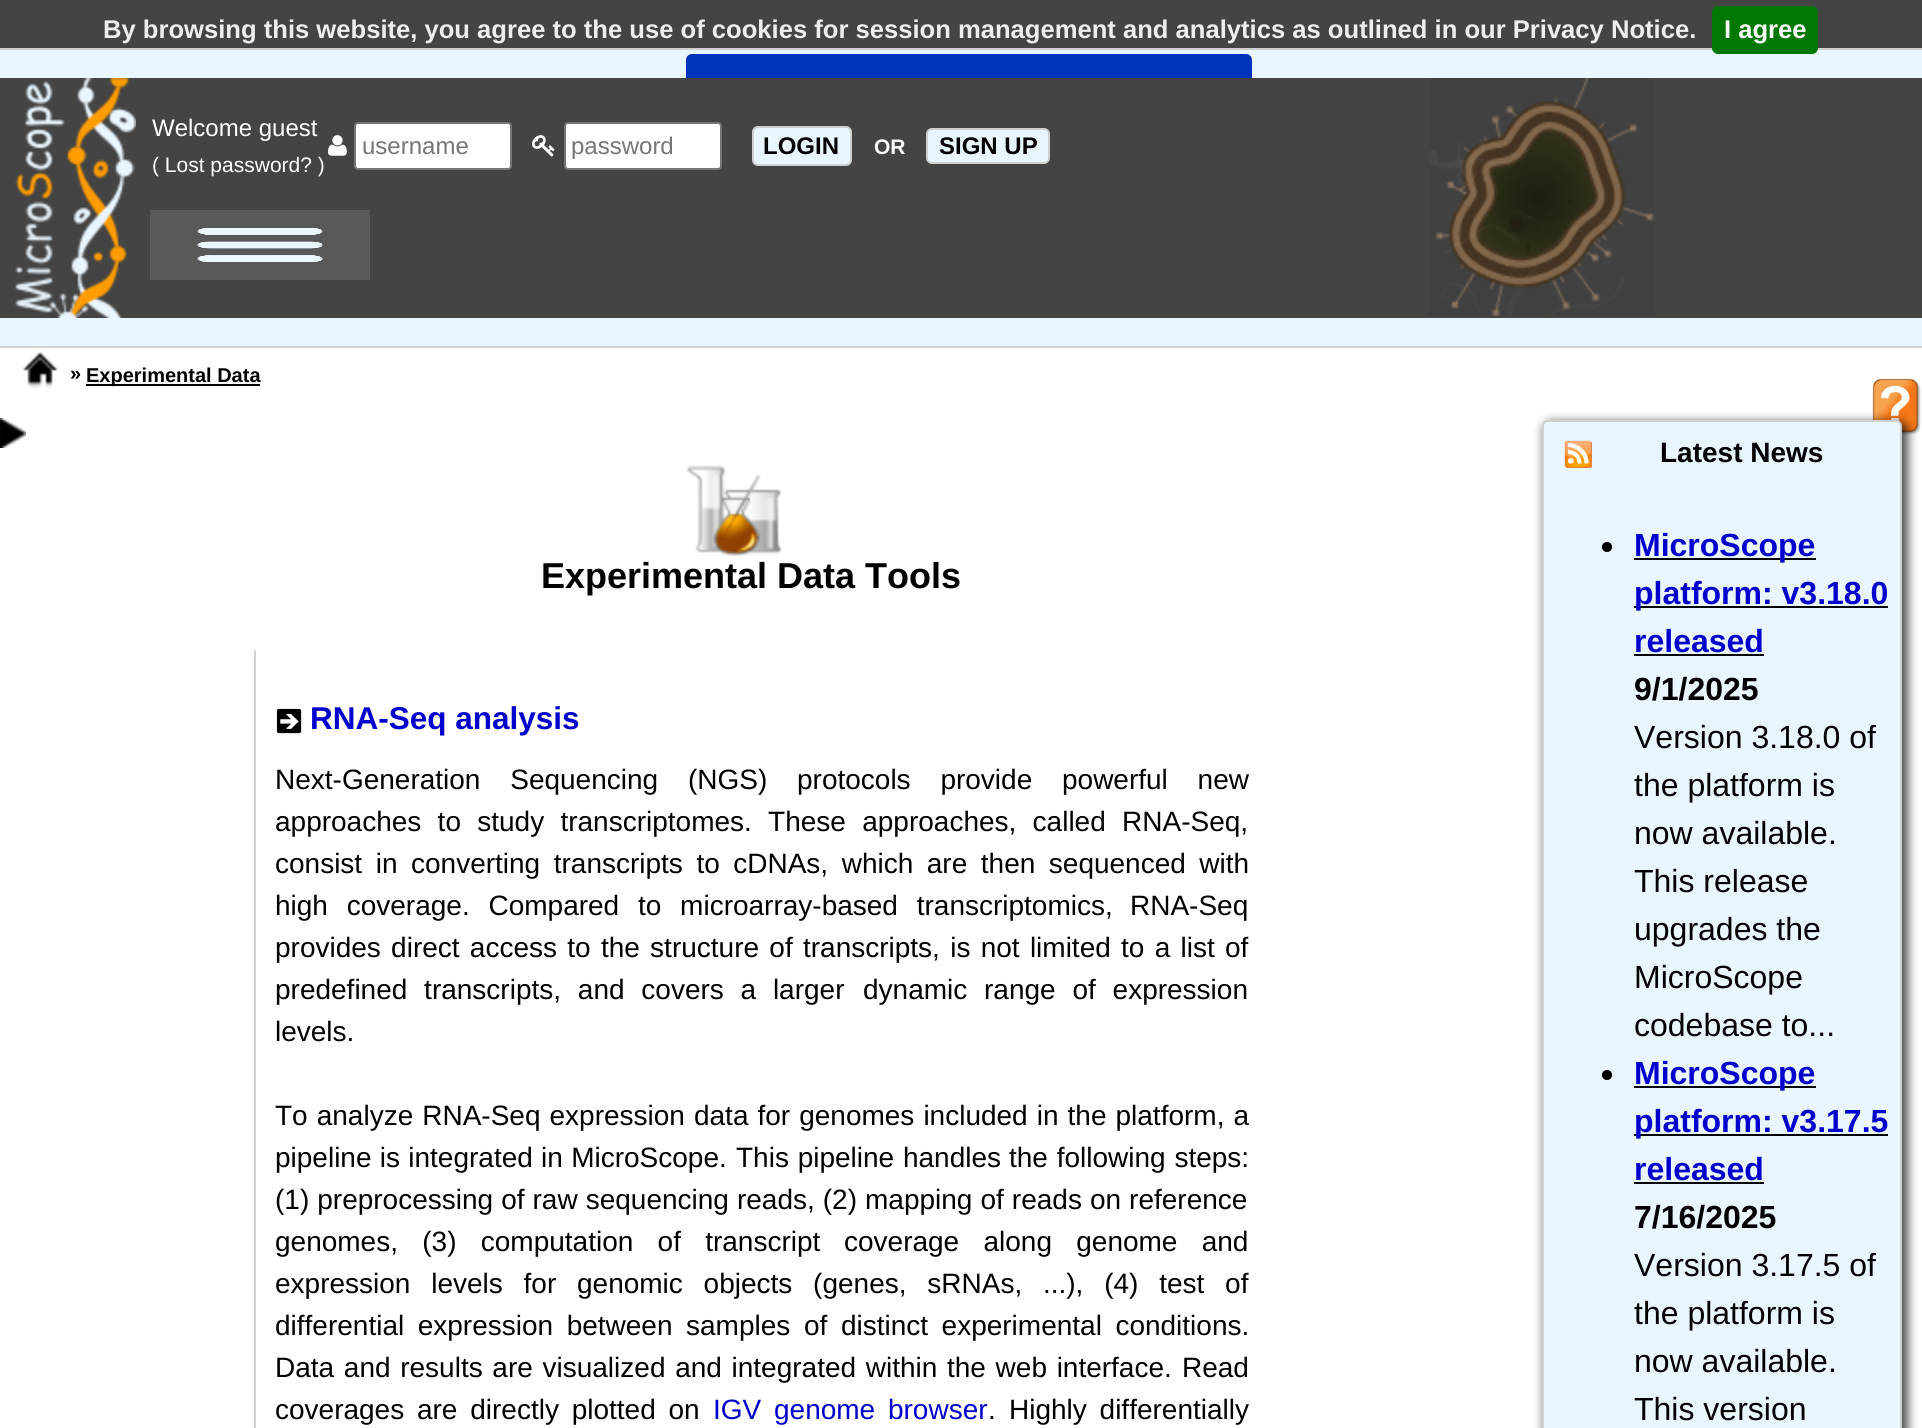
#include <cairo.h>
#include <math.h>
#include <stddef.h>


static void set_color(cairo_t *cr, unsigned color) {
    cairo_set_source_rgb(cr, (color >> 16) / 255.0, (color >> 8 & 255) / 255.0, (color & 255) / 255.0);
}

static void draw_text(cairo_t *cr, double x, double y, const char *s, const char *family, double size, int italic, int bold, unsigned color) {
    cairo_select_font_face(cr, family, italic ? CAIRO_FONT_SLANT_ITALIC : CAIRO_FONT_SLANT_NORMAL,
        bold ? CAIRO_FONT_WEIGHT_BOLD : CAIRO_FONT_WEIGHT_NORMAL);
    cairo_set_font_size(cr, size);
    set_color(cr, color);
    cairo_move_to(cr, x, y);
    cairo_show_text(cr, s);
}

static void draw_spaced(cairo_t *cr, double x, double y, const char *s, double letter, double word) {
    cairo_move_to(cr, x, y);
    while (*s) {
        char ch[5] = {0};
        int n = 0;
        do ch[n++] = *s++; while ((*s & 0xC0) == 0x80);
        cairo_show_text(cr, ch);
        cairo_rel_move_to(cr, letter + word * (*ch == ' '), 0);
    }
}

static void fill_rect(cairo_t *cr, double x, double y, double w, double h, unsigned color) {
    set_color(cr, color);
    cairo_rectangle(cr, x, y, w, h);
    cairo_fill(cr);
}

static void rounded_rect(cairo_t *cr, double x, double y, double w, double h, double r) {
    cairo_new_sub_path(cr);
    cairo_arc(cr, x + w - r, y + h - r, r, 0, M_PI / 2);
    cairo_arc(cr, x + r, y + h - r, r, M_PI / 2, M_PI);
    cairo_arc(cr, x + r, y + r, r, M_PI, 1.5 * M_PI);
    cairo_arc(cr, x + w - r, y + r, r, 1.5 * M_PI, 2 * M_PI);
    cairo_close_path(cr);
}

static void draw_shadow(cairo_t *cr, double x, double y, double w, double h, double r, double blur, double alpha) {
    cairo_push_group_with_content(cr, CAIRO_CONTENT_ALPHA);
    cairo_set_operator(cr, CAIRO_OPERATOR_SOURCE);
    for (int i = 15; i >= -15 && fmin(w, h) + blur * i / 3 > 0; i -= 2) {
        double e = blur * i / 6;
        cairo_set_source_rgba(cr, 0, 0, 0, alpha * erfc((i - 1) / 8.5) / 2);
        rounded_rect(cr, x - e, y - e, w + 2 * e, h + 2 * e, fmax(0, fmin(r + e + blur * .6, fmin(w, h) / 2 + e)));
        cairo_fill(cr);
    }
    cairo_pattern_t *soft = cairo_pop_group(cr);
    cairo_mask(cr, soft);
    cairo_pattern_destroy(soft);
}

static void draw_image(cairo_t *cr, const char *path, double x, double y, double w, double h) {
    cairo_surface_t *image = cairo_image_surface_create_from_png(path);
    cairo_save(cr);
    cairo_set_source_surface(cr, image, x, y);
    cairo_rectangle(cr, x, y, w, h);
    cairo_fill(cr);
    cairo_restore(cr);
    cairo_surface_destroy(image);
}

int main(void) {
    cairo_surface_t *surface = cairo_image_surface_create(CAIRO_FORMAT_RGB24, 1922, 1428);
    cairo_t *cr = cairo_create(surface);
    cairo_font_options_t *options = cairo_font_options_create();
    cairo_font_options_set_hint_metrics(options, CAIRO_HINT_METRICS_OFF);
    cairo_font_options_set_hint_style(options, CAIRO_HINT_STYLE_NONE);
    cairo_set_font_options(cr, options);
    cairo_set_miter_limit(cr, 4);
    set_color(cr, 0xFFFFFF);
    cairo_paint(cr);
    fill_rect(cr, 0, 0, 1922, 48, 0x444444);
    draw_text(cr, 103, 38, "By browsing this website, you agree to the use of cookies for session management and analytics as outlined in our Privacy Notice.", "Liberation Sans", 25.6, 0, 1, 0xEEEEEE);
    fill_rect(cr, 0, 50, 1922, 28, 0xEAF6FF);
    fill_rect(cr, 0, 48, 1922, 2, 0xD0D0D0);
    set_color(cr, 0x007700);
    rounded_rect(cr, 1712, 6, 106, 48, 6);
    cairo_fill(cr);
    draw_text(cr, 1724, 38, "I agree", "Liberation Sans", 25.6, 0, 1, 0xFFFFFF);
    set_color(cr, 0x0033BB);
    rounded_rect(cr, 686, 54, 566, 48, 6);
    cairo_fill(cr);
    fill_rect(cr, 0, 78, 1922, 240, 0x444444);
    draw_image(cr, "assets/img1.png", 15, 78, 121, 240);
    draw_text(cr, 152, 136, "Welcome guest", "Liberation Sans", 24, 0, 0, 0xFFFFFF);
    draw_text(cr, 152, 172, "( Lost password? )", "Liberation Sans", 21, 0, 0, 0xFFFFFF);
    draw_image(cr, "assets/img2.png", 328, 135, 19, 21);
    rounded_rect(cr, 355, 123, 156, 46, 3);
    cairo_fill_preserve(cr);
    set_color(cr, 0x767676);
    cairo_stroke(cr);
    draw_text(cr, 362, 154, "username", "Liberation Sans", 24, 0, 0, 0x757575);
    draw_image(cr, "assets/img3.png", 532, 135, 23, 22);
    set_color(cr, 0xFFFFFF);
    rounded_rect(cr, 565, 123, 156, 46, 3);
    cairo_fill_preserve(cr);
    set_color(cr, 0x767676);
    cairo_stroke(cr);
    draw_text(cr, 571, 154, "password", "Liberation Sans", 24, 0, 0, 0x757575);
    set_color(cr, 0xEAF6FF);
    rounded_rect(cr, 753, 127, 98, 38, 5);
    cairo_fill_preserve(cr);
    set_color(cr, 0xD0D0D0);
    cairo_stroke(cr);
    draw_text(cr, 763, 154, "LOGIN", "Liberation Sans", 24, 0, 1, 0x000000);
    draw_text(cr, 874, 154, "OR", "Liberation Sans", 21, 0, 1, 0xFFFFFF);
    set_color(cr, 0xEAF6FF);
    rounded_rect(cr, 927, 129, 122, 34, 5);
    cairo_fill_preserve(cr);
    set_color(cr, 0xD0D0D0);
    cairo_stroke(cr);
    draw_text(cr, 939, 154, "SIGN UP", "Liberation Sans", 24, 0, 1, 0x000000);
    draw_image(cr, "assets/img4.png", 1429, 78, 226, 239);
    fill_rect(cr, 150, 210, 220, 70, 0x58595A);
    draw_image(cr, "assets/img5.png", 197, 228, 126, 34);
    fill_rect(cr, 0, 318, 1922, 28, 0xEAF6FF);
    fill_rect(cr, 0, 346, 1922, 2, 0xD0D0D0);
    draw_image(cr, "assets/img6.png", 22, 351, 37, 37);
    draw_text(cr, 70, 380, "»", "Liberation Sans", 20, 0, 1, 0x000000);
    fill_rect(cr, 86, 384, 174, 2, 0x000000);
    draw_text(cr, 86, 382, "Experimental Data", "Liberation Sans", 20, 0, 1, 0x000000);
    draw_image(cr, "assets/img7.png", 1872, 378, 49, 57);
    draw_image(cr, "assets/img8.png", 0, 418, 26, 30);
    draw_image(cr, "assets/img9.png", 686, 465, 97, 91);
    draw_text(cr, 541, 588, "Experimental Data Tools", "Liberation Sans", 36, 0, 1, 0x000000);
    set_color(cr, 0x000000);
    draw_shadow(cr, 1544, 422, 364, 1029, 8, 5, 0.7);
    set_color(cr, 0xEAF6FF);
    rounded_rect(cr, 1543, 421, 358, 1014, 5);
    cairo_fill_preserve(cr);
    set_color(cr, 0xD0D0D0);
    cairo_stroke(cr);
    draw_image(cr, "assets/img10.png", 1564, 440, 28, 28);
    draw_text(cr, 1660, 462, "Latest News", "Liberation Sans", 28, 0, 1, 0x000000);
    cairo_new_path(cr);
    cairo_arc(cr, 1607, 547, 5, 0, 2 * M_PI);
    cairo_fill(cr);
    fill_rect(cr, 1634, 558, 182, 2, 0x000000);
    draw_text(cr, 1634, 556, "MicroScope", "Liberation Sans", 32, 0, 1, 0x0000CC);
    fill_rect(cr, 1634, 606, 254, 2, 0x000000);
    draw_text(cr, 1634, 604, "platform: v3.18.0", "Liberation Sans", 32, 0, 1, 0x0000CC);
    draw_text(cr, 1634, 652, "released", "Liberation Sans", 32, 0, 1, 0x0000CC);
    fill_rect(cr, 1634, 654, 130, 2, 0x000000);
    draw_text(cr, 1634, 700, "9/1/2025", "Liberation Sans", 32, 0, 1, 0x000000);
    draw_text(cr, 1634, 748, "Version 3.18.0 of", "Liberation Sans", 32, 0, 0, 0x000000);
    draw_text(cr, 1634, 796, "the platform is", "Liberation Sans", 32, 0, 0, 0x000000);
    draw_text(cr, 1634, 844, "now available.", "Liberation Sans", 32, 0, 0, 0x000000);
    draw_text(cr, 1634, 892, "This release", "Liberation Sans", 32, 0, 0, 0x000000);
    draw_text(cr, 1634, 940, "upgrades the", "Liberation Sans", 32, 0, 0, 0x000000);
    draw_text(cr, 1634, 988, "MicroScope", "Liberation Sans", 32, 0, 0, 0x000000);
    draw_text(cr, 1634, 1036, "codebase to...", "Liberation Sans", 32, 0, 0, 0x000000);
    cairo_new_path(cr);
    cairo_arc(cr, 1607, 1075, 5, 0, 2 * M_PI);
    cairo_fill(cr);
    fill_rect(cr, 1634, 1086, 182, 2, 0x000000);
    draw_text(cr, 1634, 1084, "MicroScope", "Liberation Sans", 32, 0, 1, 0x0000CC);
    fill_rect(cr, 1634, 1134, 254, 2, 0x000000);
    draw_text(cr, 1634, 1132, "platform: v3.17.5", "Liberation Sans", 32, 0, 1, 0x0000CC);
    draw_text(cr, 1634, 1180, "released", "Liberation Sans", 32, 0, 1, 0x0000CC);
    fill_rect(cr, 1634, 1182, 130, 2, 0x000000);
    draw_text(cr, 1634, 1228, "7/16/2025", "Liberation Sans", 32, 0, 1, 0x000000);
    draw_text(cr, 1634, 1276, "Version 3.17.5 of", "Liberation Sans", 32, 0, 0, 0x000000);
    draw_text(cr, 1634, 1324, "the platform is", "Liberation Sans", 32, 0, 0, 0x000000);
    draw_text(cr, 1634, 1372, "now available.", "Liberation Sans", 32, 0, 0, 0x000000);
    draw_text(cr, 1634, 1420, "This version", "Liberation Sans", 32, 0, 0, 0x000000);
    fill_rect(cr, 254, 650, 2, 778, 0xD0D0D0);
    draw_image(cr, "assets/img11.png", 276, 708, 26, 26);
    draw_text(cr, 310, 729, "RNA-Seq analysis", "Liberation Sans", 31.5, 0, 1, 0x0000CC);
    cairo_select_font_face(cr, "Liberation Sans", CAIRO_FONT_SLANT_NORMAL, CAIRO_FONT_WEIGHT_NORMAL);
    cairo_set_font_size(cr, 28);
    set_color(cr, 0x000000);
    draw_spaced(cr, 275, 789, "Next-Generation Sequencing (NGS) protocols provide powerful new", 0, 22);
    draw_spaced(cr, 275, 831, "approaches to study transcriptomes. These approaches, called RNA-Seq,", 0, 8.5);
    draw_spaced(cr, 275, 873, "consist in converting transcripts to cDNAs, which are then sequenced with", 0, 5.75);
    draw_spaced(cr, 275, 915, "high coverage. Compared to microarray-based transcriptomics,", 0, 11);
    draw_text(cr, 1130, 915, "RNA-Seq", "Liberation Sans", 28, 0, 0, 0x000000);
    draw_spaced(cr, 275, 957, "provides direct access to the structure of transcripts, is not limited to a list of", 0, 2.5);
    draw_spaced(cr, 275, 999, "predefined transcripts, and covers a larger", 0, 9);
    draw_spaced(cr, 863, 999, "dynamic range of expression", 0, 9);
    draw_text(cr, 275, 1041, "levels.", "Liberation Sans", 28, 0, 0, 0x000000);
    draw_spaced(cr, 275, 1125, "To analyze RNA-Seq expression data for genomes included in the platform, a", 0, 1.25);
    draw_spaced(cr, 275, 1167, "pipeline is integrated in MicroScope.", 0, 0.5);
    draw_spaced(cr, 736, 1167, "This pipeline handles", 0, 1);
    draw_spaced(cr, 1009, 1167, "the following steps:", 0, 1);
    draw_spaced(cr, 275, 1209, "(1) preprocessing of raw sequencing reads, (2) mapping of reads on reference", 0, 0.25);
    draw_spaced(cr, 275, 1251, "genomes, (3) computation of transcript", 0, 16.5);
    draw_spaced(cr, 844, 1251, "coverage along genome and", 0, 16.5);
    draw_spaced(cr, 275, 1293, "expression levels for genomic objects (genes, sRNAs, ...), (4) test of", 0, 13);
    draw_spaced(cr, 275, 1335, "differential expression between samples", 0, 5.75);
    draw_spaced(cr, 804, 1335, "of distinct experimental conditions.", 0, 5.75);
    draw_spaced(cr, 275, 1377, "Data and results are visualized and integrated within the web interface.", 0, 1.9);
    draw_text(cr, 1182, 1377, "Read", "Liberation Sans", 28, 0, 0, 0x000000);
    draw_spaced(cr, 275, 1419, "coverages are directly plotted on", 0, 5);
    set_color(cr, 0x0000CC);
    draw_spaced(cr, 713, 1419, "IGV genome browser", 0, 5);
    draw_text(cr, 988, 1419, ".", "Liberation Sans", 28, 0, 0, 0x000000);
    draw_spaced(cr, 1009, 1419, "Highly differentially", 0, 5);
    cairo_surface_write_to_png(surface, "output.png");
    cairo_font_options_destroy(options);
    cairo_destroy(cr);
    cairo_surface_destroy(surface);
    return 0;
}
